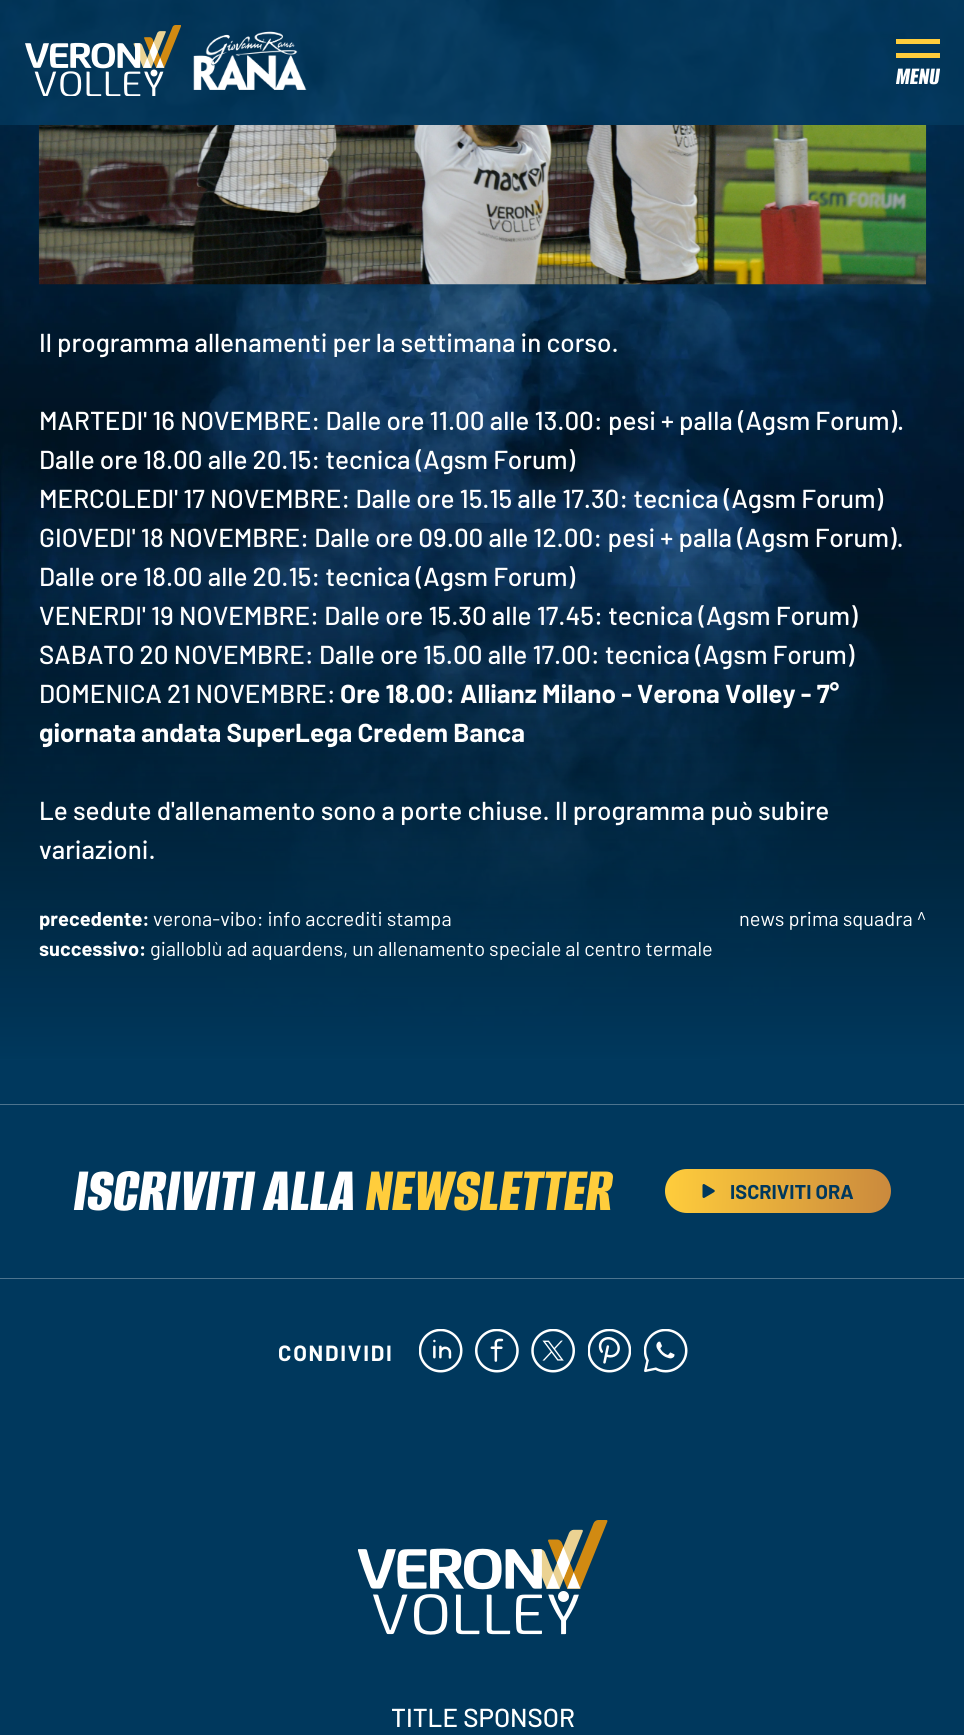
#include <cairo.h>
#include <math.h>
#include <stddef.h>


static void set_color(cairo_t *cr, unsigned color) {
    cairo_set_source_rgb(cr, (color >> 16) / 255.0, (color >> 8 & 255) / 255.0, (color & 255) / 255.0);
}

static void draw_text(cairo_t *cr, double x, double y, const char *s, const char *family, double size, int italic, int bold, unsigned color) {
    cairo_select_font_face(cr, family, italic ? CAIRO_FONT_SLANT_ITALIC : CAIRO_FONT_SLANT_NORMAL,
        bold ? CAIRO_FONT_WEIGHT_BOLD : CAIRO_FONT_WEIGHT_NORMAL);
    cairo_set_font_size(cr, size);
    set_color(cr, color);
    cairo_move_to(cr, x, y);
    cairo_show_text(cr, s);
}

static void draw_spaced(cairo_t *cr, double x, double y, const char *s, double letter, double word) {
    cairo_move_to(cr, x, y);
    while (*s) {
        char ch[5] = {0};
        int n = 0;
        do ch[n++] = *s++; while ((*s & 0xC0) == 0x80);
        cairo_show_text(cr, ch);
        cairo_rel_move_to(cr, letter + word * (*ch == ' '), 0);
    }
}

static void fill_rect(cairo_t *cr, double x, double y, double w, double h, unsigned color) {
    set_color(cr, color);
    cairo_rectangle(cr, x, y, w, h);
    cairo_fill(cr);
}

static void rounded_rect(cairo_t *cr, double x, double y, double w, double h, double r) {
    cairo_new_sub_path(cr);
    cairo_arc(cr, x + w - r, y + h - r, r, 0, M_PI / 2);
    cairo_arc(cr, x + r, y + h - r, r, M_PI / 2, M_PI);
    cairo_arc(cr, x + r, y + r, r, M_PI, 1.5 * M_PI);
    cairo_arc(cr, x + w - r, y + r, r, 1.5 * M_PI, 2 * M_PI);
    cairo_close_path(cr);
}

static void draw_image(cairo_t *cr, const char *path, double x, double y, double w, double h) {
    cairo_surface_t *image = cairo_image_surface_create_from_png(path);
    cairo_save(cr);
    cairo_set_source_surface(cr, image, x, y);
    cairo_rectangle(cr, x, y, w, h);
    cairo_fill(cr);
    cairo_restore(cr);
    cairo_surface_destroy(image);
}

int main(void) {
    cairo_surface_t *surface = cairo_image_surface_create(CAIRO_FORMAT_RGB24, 964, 1735);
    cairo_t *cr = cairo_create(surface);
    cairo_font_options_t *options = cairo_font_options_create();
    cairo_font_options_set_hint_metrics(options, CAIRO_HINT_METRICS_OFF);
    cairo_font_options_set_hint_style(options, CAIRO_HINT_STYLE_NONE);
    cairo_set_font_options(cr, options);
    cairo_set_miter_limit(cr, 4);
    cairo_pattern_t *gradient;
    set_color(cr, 0xFFFFFF);
    cairo_paint(cr);
    fill_rect(cr, 0, 0, 964, 125, 0x00385D);
    draw_image(cr, "assets/img1.png", 0, 0, 964, 125);
    draw_image(cr, "assets/img2.png", 25, 25, 156, 71);
    draw_image(cr, "assets/img3.png", 193, 31, 114, 59);
    fill_rect(cr, 896, 39, 44, 5, 0xFFCD3C);
    fill_rect(cr, 896, 53, 44, 5, 0xFFCD3C);
    draw_text(cr, 896, 84, "MENU", "Alumni Sans Thin", 26, 1, 0, 0xFFFFFF);
    draw_image(cr, "assets/img4.png", 0, 125, 964, 934);
    gradient = cairo_pattern_create_linear(482, -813, 483, 1095);
    cairo_pattern_add_color_stop_rgba(gradient, 0, 0, 0.22, 0.365, 1);
    cairo_pattern_add_color_stop_rgba(gradient, 1, 0, 0.22, 0.365, 0);
    cairo_set_source(cr, gradient);
    cairo_pattern_destroy(gradient);
    cairo_rectangle(cr, 0, 125, 964, 919);
    cairo_fill(cr);
    gradient = cairo_pattern_create_linear(484, 1061, 481, -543);
    cairo_pattern_add_color_stop_rgba(gradient, 0, 0, 0.22, 0.365, 1);
    cairo_pattern_add_color_stop_rgba(gradient, 0.34, 0, 0.22, 0.365, 0);
    cairo_set_source(cr, gradient);
    cairo_pattern_destroy(gradient);
    cairo_rectangle(cr, 0, 537, 964, 523);
    cairo_fill(cr);
    draw_image(cr, "assets/img5.png", 38, 125, 889, 160);
    draw_text(cr, 39, 352, "Il programma allenamenti per la settimana in corso.", "Barlow Medium", 26, 0, 0, 0xFFFFFF);
    draw_text(cr, 39, 430, "MARTEDI' 16 NOVEMBRE: Dalle ore 11.00 alle 13.00: pesi + palla (Agsm Forum).", "Barlow Medium", 26, 0, 0, 0xFFFFFF);
    draw_text(cr, 39, 469, "Dalle ore 18.00 alle 20.15: tecnica (Agsm Forum)", "Barlow Medium", 26, 0, 0, 0xFFFFFF);
    draw_text(cr, 39, 508, "MERCOLEDI' 17 NOVEMBRE: Dalle ore 15.15 alle 17.30: tecnica (Agsm Forum)", "Barlow Medium", 26, 0, 0, 0xFFFFFF);
    draw_text(cr, 39, 547, "GIOVEDI' 18 NOVEMBRE: Dalle ore 09.00 alle 12.00: pesi + palla (Agsm Forum).", "Barlow Medium", 26, 0, 0, 0xFFFFFF);
    draw_text(cr, 39, 586, "Dalle ore 18.00 alle 20.15: tecnica (Agsm Forum)", "Barlow Medium", 26, 0, 0, 0xFFFFFF);
    draw_text(cr, 39, 625, "VENERDI' 19 NOVEMBRE: Dalle ore 15.30 alle 17.45: tecnica (Agsm Forum)", "Barlow Medium", 26, 0, 0, 0xFFFFFF);
    draw_text(cr, 39, 664, "SABATO 20 NOVEMBRE: Dalle ore 15.00 alle 17.00: tecnica (Agsm Forum)", "Barlow Medium", 26, 0, 0, 0xFFFFFF);
    draw_text(cr, 39, 703, "DOMENICA 21 NOVEMBRE:", "Barlow Medium", 26, 0, 0, 0xFFFFFF);
    draw_text(cr, 340, 703, "Ore 18.00: Allianz Milano - Verona Volley - 7°", "Barlow", 26, 0, 1, 0xFFFFFF);
    draw_text(cr, 39, 742, "giornata andata SuperLega Credem Banca", "Barlow", 26, 0, 1, 0xFFFFFF);
    draw_text(cr, 39, 820, "Le sedute d'allenamento sono a porte chiuse. Il programma può subire", "Barlow Medium", 26, 0, 0, 0xFFFFFF);
    draw_text(cr, 39, 859, "variazioni.", "Barlow Medium", 26, 0, 0, 0xFFFFFF);
    draw_text(cr, 39, 926, "precedente:", "Barlow", 20, 0, 1, 0xFFFFFF);
    draw_text(cr, 153, 926, "verona-vibo: info accrediti stampa", "Barlow", 20, 0, 0, 0xFFFFFF);
    draw_text(cr, 39, 956, "successivo:", "Barlow", 20, 0, 1, 0xFFFFFF);
    draw_text(cr, 150, 956, "gialloblù ad aquardens, un allenamento speciale al centro termale", "Barlow", 20, 0, 0, 0xFFFFFF);
    draw_text(cr, 739, 926, "news prima squadra", "Barlow", 20, 0, 0, 0xFFFFFF);
    draw_text(cr, 917, 926, "^", "Barlow", 20, 0, 0, 0xFFFFFF);
    fill_rect(cr, 0, 1060, 964, 675, 0x00385D);
    fill_rect(cr, 0, 1104, 964, 1, 0x4D748E);
    fill_rect(cr, 0, 1278, 964, 1, 0x4D748E);
    draw_text(cr, 74, 1210, "ISCRIVITI ALLA", "Alumni Sans Thin", 65, 1, 0, 0xFFFFFF);
    draw_text(cr, 366, 1210, "NEWSLETTER", "Alumni Sans Thin", 65, 1, 0, 0xFFCD3C);
    gradient = cairo_pattern_create_linear(664, 1187, 892, 1195);
    cairo_pattern_add_color_stop_rgba(gradient, 0, 1, 0.804, 0.235, 1);
    cairo_pattern_add_color_stop_rgba(gradient, 1, 0.792, 0.537, 0.239, 1);
    cairo_set_source(cr, gradient);
    cairo_pattern_destroy(gradient);
    rounded_rect(cr, 665, 1169, 226, 44, 22);
    cairo_fill(cr);
    draw_image(cr, "assets/img6.png", 702, 1184, 13, 14);
    draw_text(cr, 730, 1199, "ISCRIVITI ORA", "Barlow", 20, 0, 1, 0x00385D);
    cairo_set_font_size(cr, 22);
    set_color(cr, 0xFFFFFF);
    draw_spaced(cr, 278, 1361, "CONDIVIDI", 1.75, 0);
    draw_image(cr, "assets/img7.png", 419, 1329, 44, 44);
    draw_image(cr, "assets/img8.png", 475, 1329, 44, 44);
    draw_image(cr, "assets/img9.png", 531, 1329, 44, 44);
    draw_image(cr, "assets/img10.png", 588, 1329, 43, 44);
    draw_image(cr, "assets/img11.png", 644, 1329, 44, 44);
    draw_image(cr, "assets/img12.png", 358, 1520, 250, 115);
    draw_text(cr, 391, 1727, "TITLE SPONSOR", "Barlow Medium", 26, 0, 0, 0xFFFFFF);
    cairo_surface_write_to_png(surface, "output.png");
    cairo_font_options_destroy(options);
    cairo_destroy(cr);
    cairo_surface_destroy(surface);
    return 0;
}
